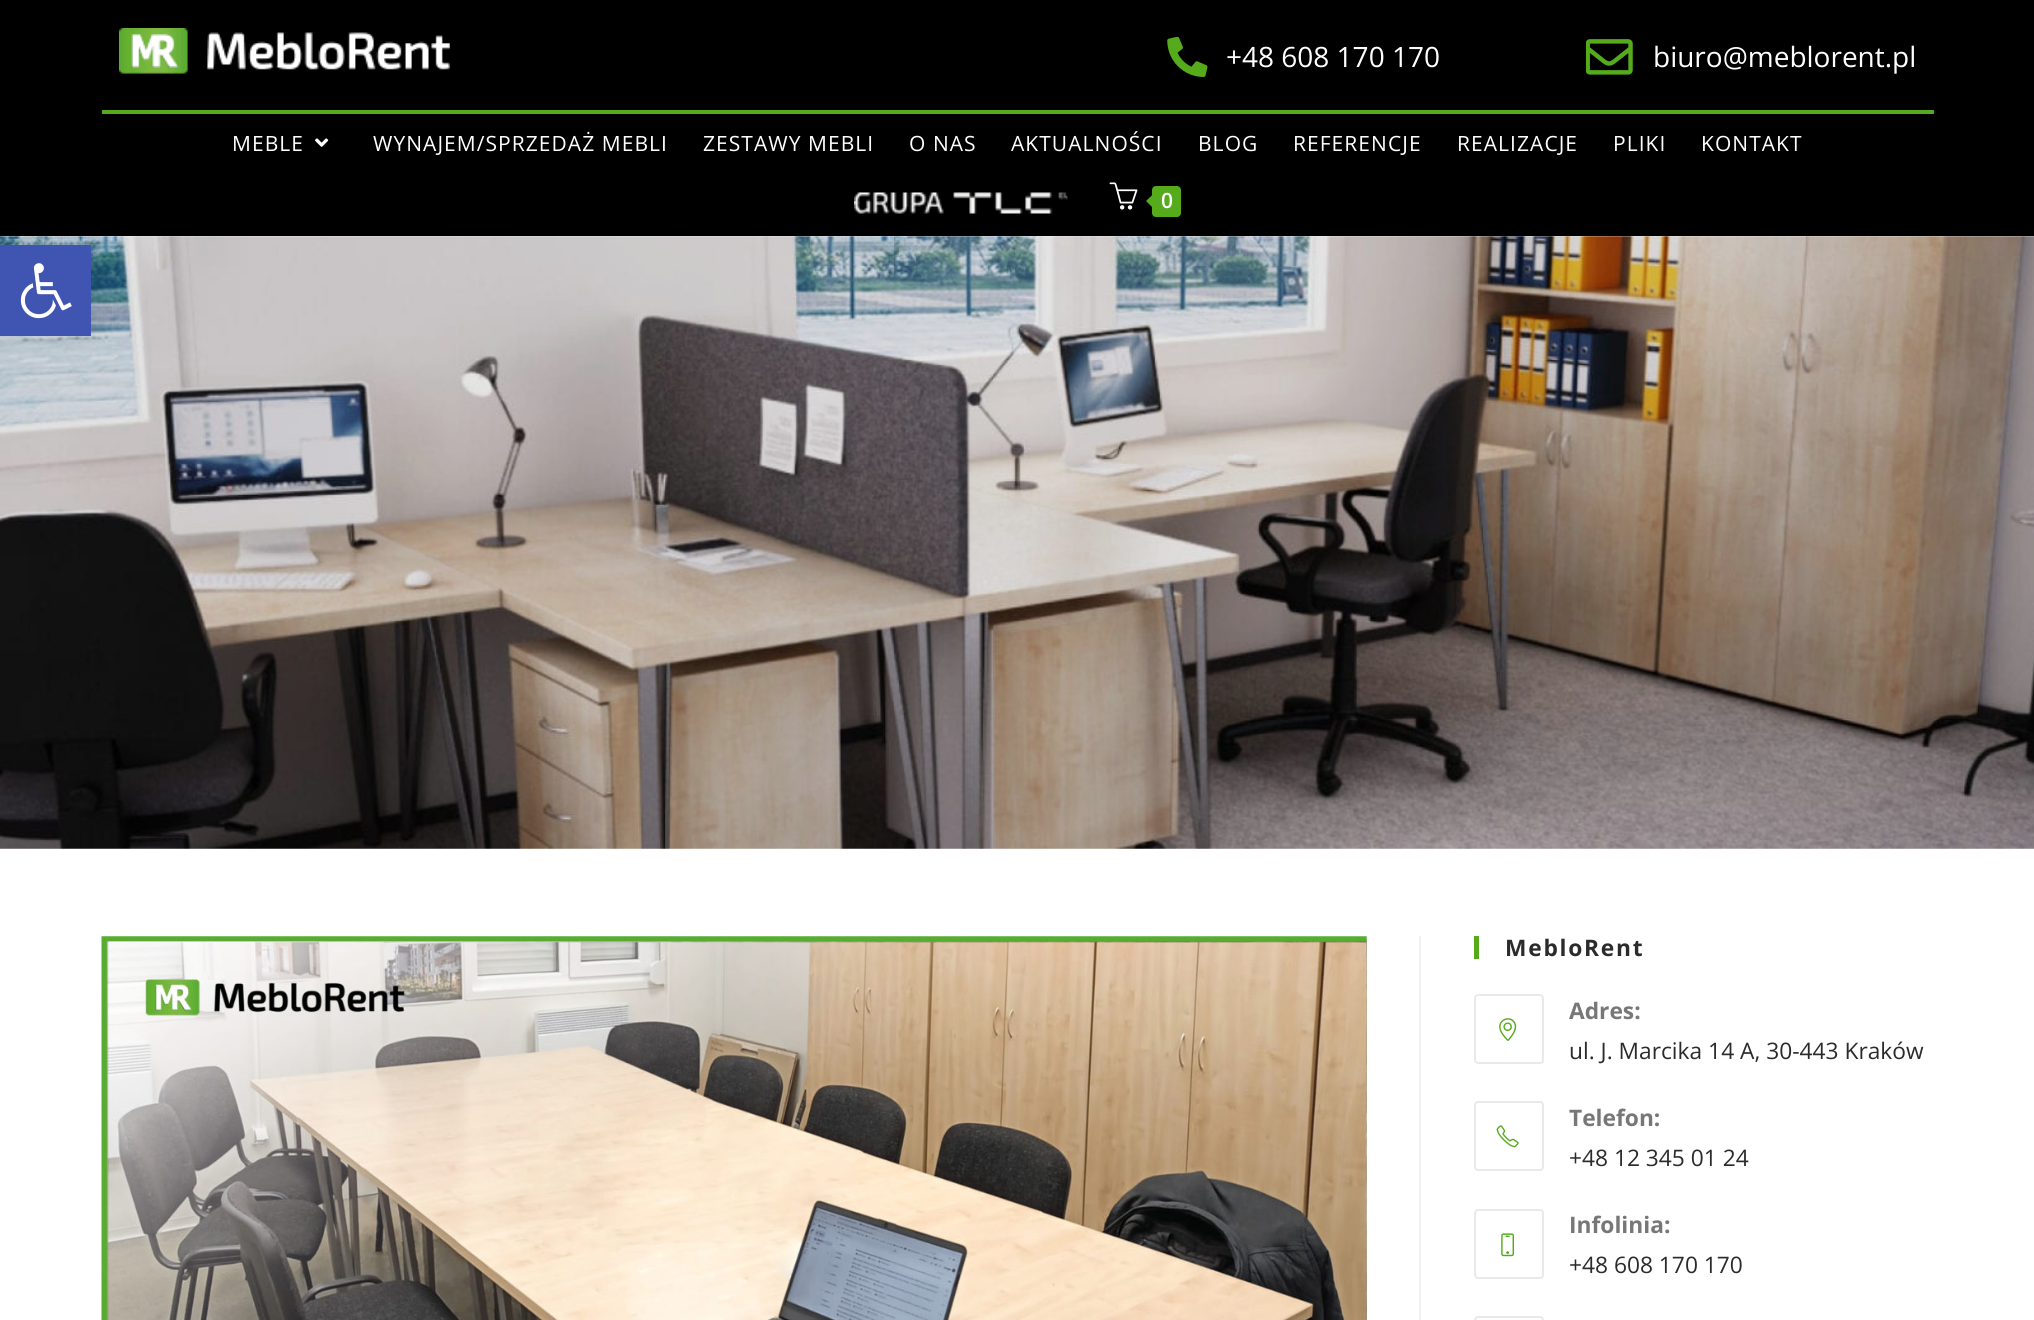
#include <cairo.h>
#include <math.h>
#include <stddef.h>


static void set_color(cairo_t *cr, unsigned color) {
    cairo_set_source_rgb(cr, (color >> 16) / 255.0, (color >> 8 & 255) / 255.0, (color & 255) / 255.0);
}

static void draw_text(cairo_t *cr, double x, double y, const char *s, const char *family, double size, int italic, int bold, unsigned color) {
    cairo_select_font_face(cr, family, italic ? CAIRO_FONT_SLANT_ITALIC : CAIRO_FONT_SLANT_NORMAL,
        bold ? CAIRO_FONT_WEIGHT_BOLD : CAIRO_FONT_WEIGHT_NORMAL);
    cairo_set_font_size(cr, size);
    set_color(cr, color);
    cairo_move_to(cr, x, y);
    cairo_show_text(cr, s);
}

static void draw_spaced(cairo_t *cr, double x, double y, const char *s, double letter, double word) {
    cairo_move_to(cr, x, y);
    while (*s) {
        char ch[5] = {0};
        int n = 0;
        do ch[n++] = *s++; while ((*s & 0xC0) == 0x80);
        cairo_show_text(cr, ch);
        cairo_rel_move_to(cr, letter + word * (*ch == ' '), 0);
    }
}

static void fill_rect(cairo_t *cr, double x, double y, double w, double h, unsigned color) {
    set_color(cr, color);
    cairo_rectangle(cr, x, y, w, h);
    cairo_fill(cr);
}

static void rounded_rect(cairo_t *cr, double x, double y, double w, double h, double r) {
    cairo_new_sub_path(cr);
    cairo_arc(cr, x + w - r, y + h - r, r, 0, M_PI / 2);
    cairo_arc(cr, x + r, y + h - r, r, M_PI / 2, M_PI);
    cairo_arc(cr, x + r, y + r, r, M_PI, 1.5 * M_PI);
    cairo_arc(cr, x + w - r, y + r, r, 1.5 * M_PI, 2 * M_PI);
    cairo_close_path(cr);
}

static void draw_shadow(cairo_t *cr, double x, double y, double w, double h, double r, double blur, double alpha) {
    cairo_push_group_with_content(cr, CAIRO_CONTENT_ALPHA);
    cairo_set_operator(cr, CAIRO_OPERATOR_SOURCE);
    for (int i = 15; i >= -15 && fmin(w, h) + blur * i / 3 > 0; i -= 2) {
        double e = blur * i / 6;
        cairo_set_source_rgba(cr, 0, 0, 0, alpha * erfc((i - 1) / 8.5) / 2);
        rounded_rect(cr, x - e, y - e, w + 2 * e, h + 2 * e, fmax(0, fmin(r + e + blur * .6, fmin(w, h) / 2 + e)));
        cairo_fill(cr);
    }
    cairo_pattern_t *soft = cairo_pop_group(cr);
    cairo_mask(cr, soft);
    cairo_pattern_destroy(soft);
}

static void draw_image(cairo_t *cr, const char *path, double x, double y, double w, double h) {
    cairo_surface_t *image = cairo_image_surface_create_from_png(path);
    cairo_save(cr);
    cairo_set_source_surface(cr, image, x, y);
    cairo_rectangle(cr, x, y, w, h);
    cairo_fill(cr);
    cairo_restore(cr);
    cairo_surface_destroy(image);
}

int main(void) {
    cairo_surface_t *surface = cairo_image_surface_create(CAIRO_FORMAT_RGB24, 2034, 1320);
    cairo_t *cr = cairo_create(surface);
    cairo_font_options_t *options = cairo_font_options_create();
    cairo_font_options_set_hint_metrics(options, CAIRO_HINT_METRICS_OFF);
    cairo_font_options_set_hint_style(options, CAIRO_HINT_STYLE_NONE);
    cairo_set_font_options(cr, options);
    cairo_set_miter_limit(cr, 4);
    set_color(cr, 0xFFFFFF);
    cairo_paint(cr);
    fill_rect(cr, 0, 0, 2034, 236, 0x000000);
    draw_image(cr, "assets/img8.png", 0, 236, 2034, 613);
    set_color(cr, 0x000000);
    draw_shadow(cr, 0, 245, 91, 91, 0, 9, 0.1);
    fill_rect(cr, 0, 245, 91, 91, 0x4054B2);
    draw_image(cr, "assets/img1.png", 20, 263, 52, 56);
    draw_image(cr, "assets/img2.png", 119, 28, 331, 46);
    draw_image(cr, "assets/img3.png", 1167, 37, 41, 40);
    draw_text(cr, 1226, 67, "+48 608 170 170", "Open Sans", 28, 0, 0, 0xFFFFFF);
    draw_image(cr, "assets/img4.png", 1586, 39, 47, 36);
    draw_text(cr, 1653, 67, "biuro@meblorent.pl", "Open Sans", 28, 0, 0, 0xFFFFFF);
    fill_rect(cr, 102, 110, 1832, 4, 0x55AB1B);
    cairo_set_font_size(cr, 21);
    set_color(cr, 0xFFFFFF);
    draw_spaced(cr, 232, 151, "MEBLE", 1.05, 0);
    draw_image(cr, "assets/img5.png", 315, 138, 14, 9);
    draw_spaced(cr, 373, 151, "WYNAJEM/SPRZEDAŻ MEBLI", 1.05, 0);
    draw_spaced(cr, 703, 151, "ZESTAWY MEBLI", 1.05, 0);
    draw_spaced(cr, 909, 151, "O NAS", 1.05, 0);
    draw_spaced(cr, 1011, 151, "AKTUALNOŚCI", 1.05, 0);
    draw_spaced(cr, 1198, 151, "BLOG", 1.05, 0);
    draw_spaced(cr, 1293, 151, "REFERENCJE", 1.05, 0);
    draw_spaced(cr, 1457, 151, "REALIZACJE", 1.05, 0);
    draw_spaced(cr, 1613, 151, "PLIKI", 1.05, 0);
    draw_spaced(cr, 1701, 151, "KONTAKT", 1.05, 0);
    draw_image(cr, "assets/img6.png", 854, 192, 214, 22);
    draw_image(cr, "assets/img7.png", 1109, 182, 29, 28);
    set_color(cr, 0x55AB1B);
    rounded_rect(cr, 1152, 186, 29, 31, 4);
    cairo_fill(cr);
    cairo_new_path(cr);
    cairo_move_to(cr, 1155, 192.5);
    cairo_line_to(cr, 1155, 210);
    cairo_line_to(cr, 1146, 201);
    cairo_close_path(cr);
    cairo_fill(cr);
    draw_text(cr, 1161, 208, "0", "Open Sans SemiBold", 21, 0, 0, 0xFFFFFF);
    fill_rect(cr, 1419, 936, 2, 384, 0xF1F1F1);
    draw_image(cr, "assets/img9.png", 101, 936, 1266, 384);
    fill_rect(cr, 1474, 936, 5, 23, 0x55AB1B);
    cairo_select_font_face(cr, "Open Sans", CAIRO_FONT_SLANT_NORMAL, CAIRO_FONT_WEIGHT_BOLD);
    cairo_set_font_size(cr, 22.75);
    set_color(cr, 0x2B2B2B);
    draw_spaced(cr, 1505, 956, "MebloRent", 1.75, 0);
    rounded_rect(cr, 1475, 995, 68, 68, 3);
    set_color(cr, 0xE9E9E9);
    cairo_stroke(cr);
    draw_image(cr, "assets/img10.png", 1499, 1018, 18, 23);
    draw_text(cr, 1569, 1019, "Adres:", "Open Sans", 22.75, 0, 1, 0x777777);
    draw_text(cr, 1569, 1059, "ul. J. Marcika 14 A, 30-443 Kraków", "Open Sans", 22.75, 0, 0, 0x2B2B2B);
    rounded_rect(cr, 1475, 1102, 68, 68, 3);
    set_color(cr, 0xE9E9E9);
    cairo_stroke(cr);
    draw_image(cr, "assets/img11.png", 1496, 1125, 23, 23);
    draw_text(cr, 1569, 1126, "Telefon:", "Open Sans", 22.75, 0, 1, 0x777777);
    draw_text(cr, 1569, 1166, "+48 12 345 01 24", "Open Sans", 22.75, 0, 0, 0x2B2B2B);
    rounded_rect(cr, 1475, 1210, 68, 68, 3);
    set_color(cr, 0xE9E9E9);
    cairo_stroke(cr);
    draw_image(cr, "assets/img12.png", 1501, 1233, 13, 24);
    draw_text(cr, 1569, 1233, "Infolinia:", "Open Sans", 22.75, 0, 1, 0x777777);
    draw_text(cr, 1569, 1273, "+48 608 170 170", "Open Sans", 22.75, 0, 0, 0x2B2B2B);
    rounded_rect(cr, 1475, 1317, 68, 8, 3);
    set_color(cr, 0xE9E9E9);
    cairo_stroke(cr);
    cairo_surface_write_to_png(surface, "output.png");
    cairo_font_options_destroy(options);
    cairo_destroy(cr);
    cairo_surface_destroy(surface);
    return 0;
}
